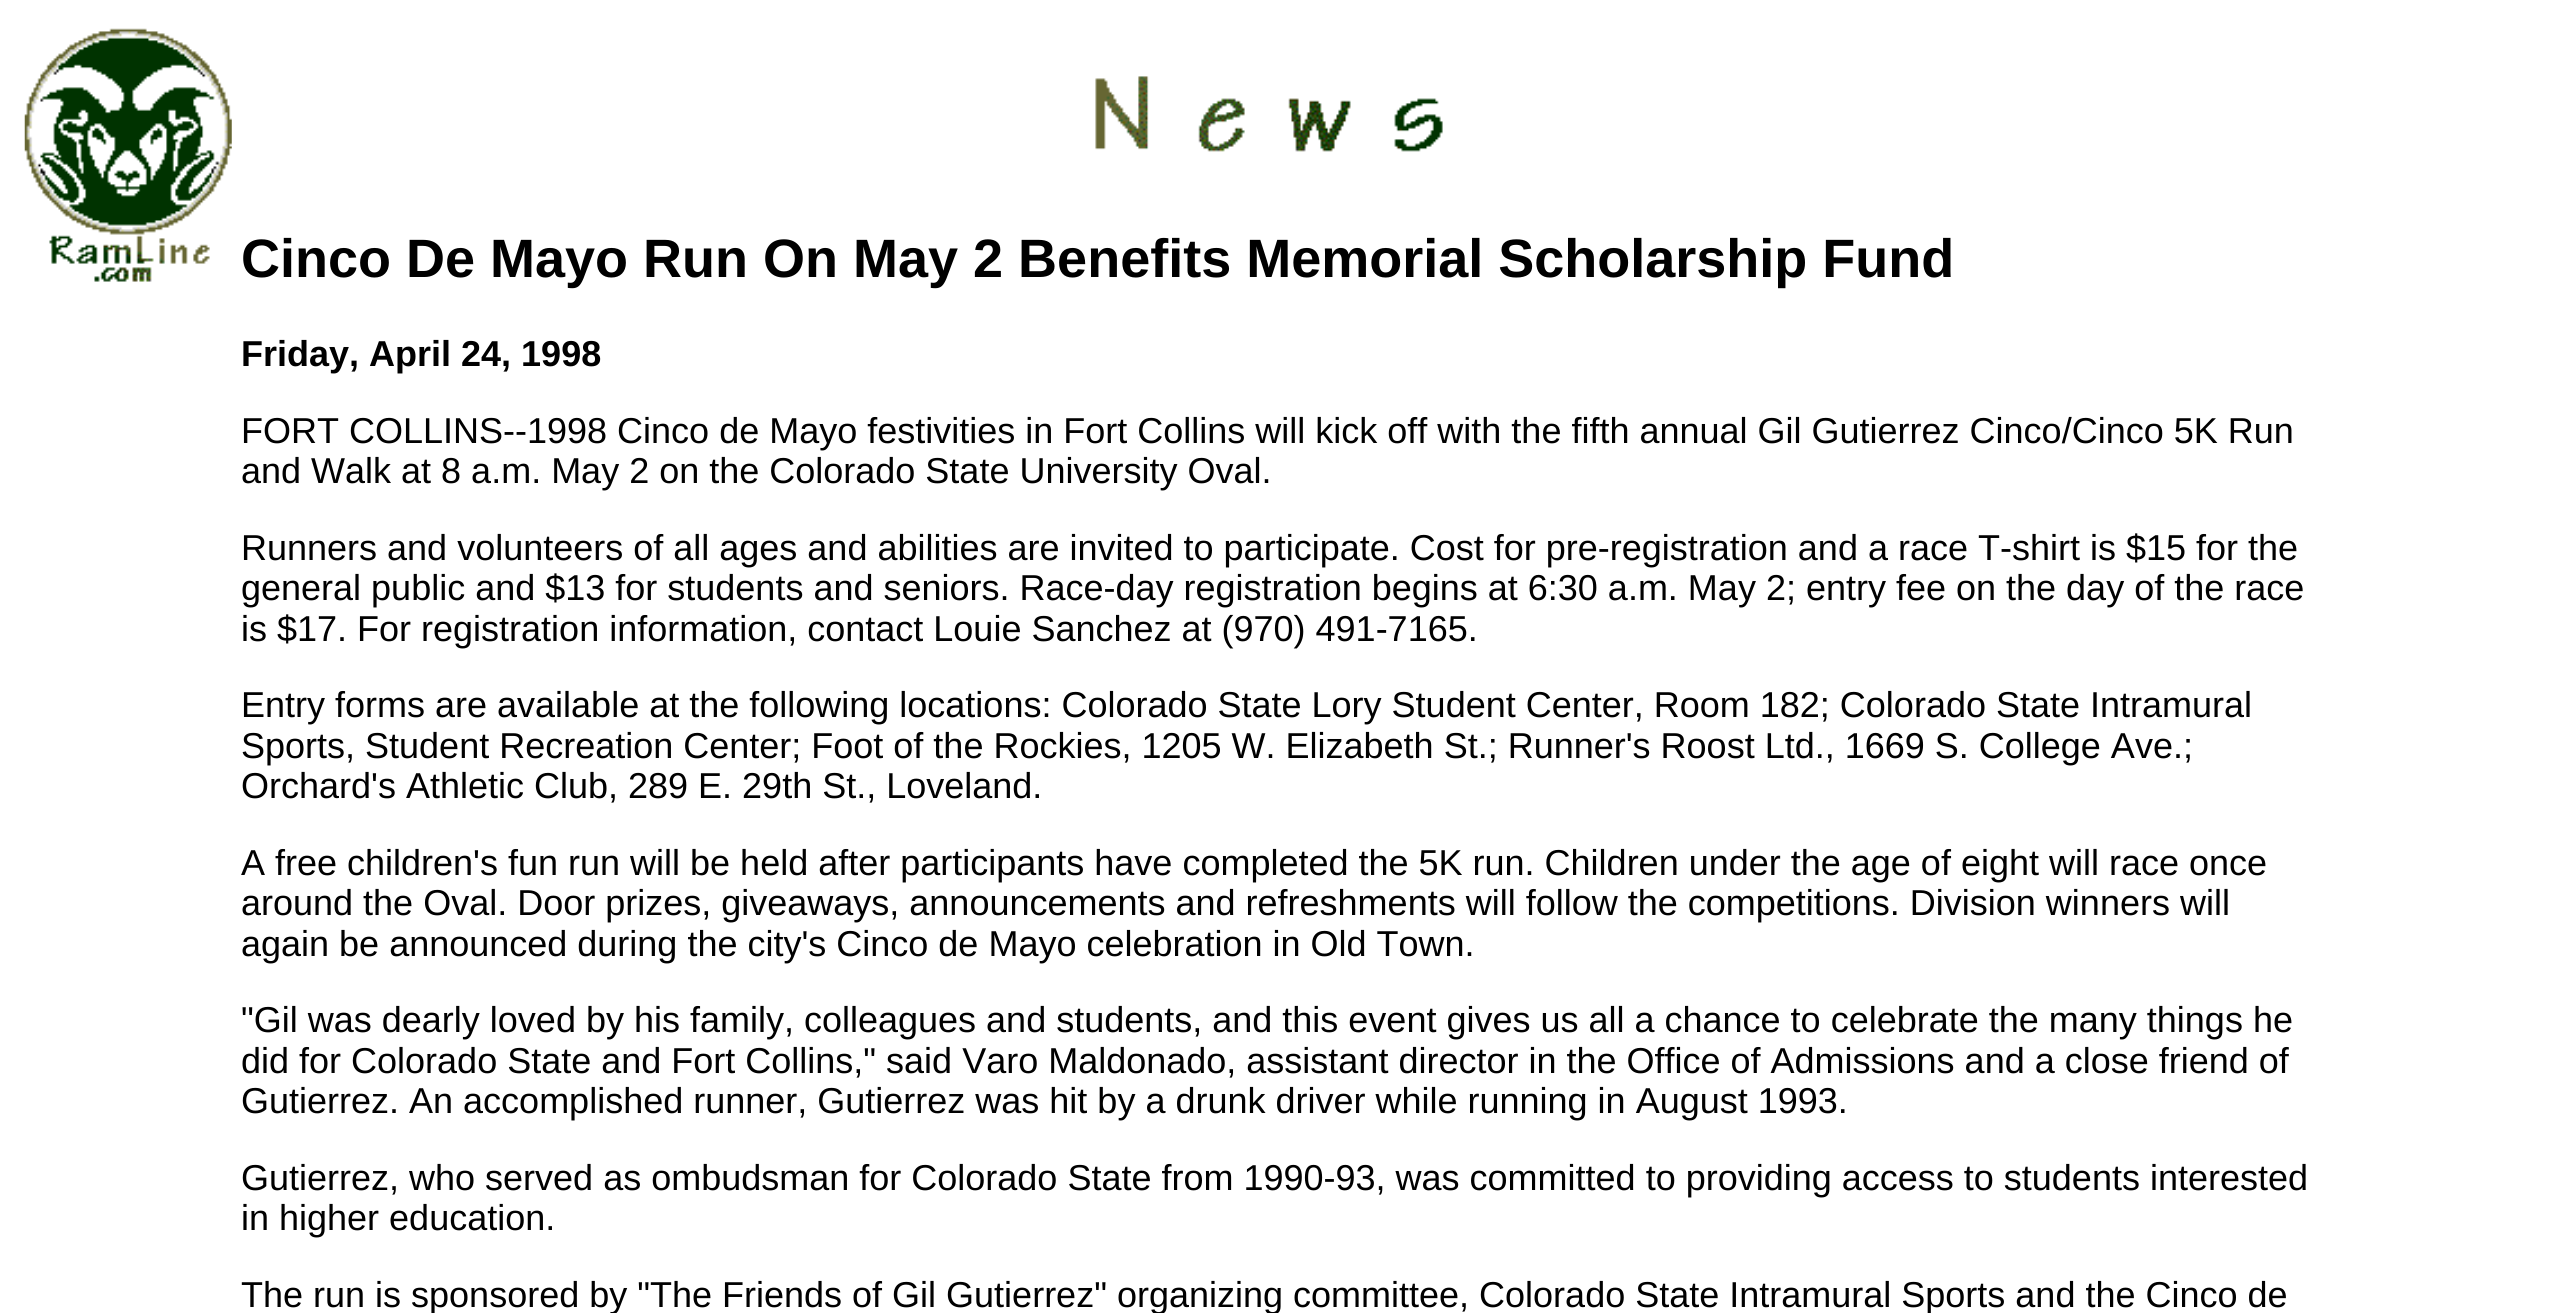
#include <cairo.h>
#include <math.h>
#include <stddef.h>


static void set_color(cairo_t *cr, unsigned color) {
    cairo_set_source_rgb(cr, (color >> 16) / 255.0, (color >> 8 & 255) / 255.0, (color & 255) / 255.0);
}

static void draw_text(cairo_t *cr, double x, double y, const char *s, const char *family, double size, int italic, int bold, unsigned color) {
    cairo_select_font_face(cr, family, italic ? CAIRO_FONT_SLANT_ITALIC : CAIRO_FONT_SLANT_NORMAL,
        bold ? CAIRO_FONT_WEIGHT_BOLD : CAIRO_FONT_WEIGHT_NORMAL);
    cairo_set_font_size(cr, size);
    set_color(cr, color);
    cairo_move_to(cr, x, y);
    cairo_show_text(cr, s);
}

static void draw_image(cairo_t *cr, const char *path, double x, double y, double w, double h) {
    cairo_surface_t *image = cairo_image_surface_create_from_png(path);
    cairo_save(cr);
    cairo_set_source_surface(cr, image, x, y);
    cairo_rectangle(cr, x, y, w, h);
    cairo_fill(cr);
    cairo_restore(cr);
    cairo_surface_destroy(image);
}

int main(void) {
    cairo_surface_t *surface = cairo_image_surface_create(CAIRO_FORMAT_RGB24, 2555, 1313);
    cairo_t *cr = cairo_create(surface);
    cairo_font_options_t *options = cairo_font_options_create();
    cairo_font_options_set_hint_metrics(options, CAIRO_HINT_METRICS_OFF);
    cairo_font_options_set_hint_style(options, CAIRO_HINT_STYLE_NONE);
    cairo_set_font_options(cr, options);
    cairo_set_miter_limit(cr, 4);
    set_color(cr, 0xFFFFFF);
    cairo_paint(cr);
    draw_image(cr, "assets/img1.png", 24, 28, 208, 254);
    draw_image(cr, "assets/img2.png", 1095, 76, 348, 76);
    draw_text(cr, 241, 277, "Cinco De Mayo Run On May 2 Benefits Memorial Scholarship Fund", "Liberation Sans", 54, 0, 1, 0x000000);
    draw_text(cr, 241, 366, "Friday, April 24, 1998", "Liberation Sans", 36, 0, 1, 0x000000);
    draw_text(cr, 241, 443, "FORT COLLINS--1998 Cinco de Mayo festivities in Fort Collins will kick off with the fifth annual Gil Gutierrez Cinco/Cinco 5K Run", "Liberation Sans", 36, 0, 0, 0x000000);
    draw_text(cr, 241, 483, "and Walk at 8 a.m. May 2 on the Colorado State University Oval.", "Liberation Sans", 36, 0, 0, 0x000000);
    draw_text(cr, 241, 560, "Runners and volunteers of all ages and abilities are invited to participate. Cost for pre-registration and a race T-shirt is $15 for the", "Liberation Sans", 36, 0, 0, 0x000000);
    draw_text(cr, 241, 600, "general public and $13 for students and seniors. Race-day registration begins at 6:30 a.m. May 2; entry fee on the day of the race", "Liberation Sans", 36, 0, 0, 0x000000);
    draw_text(cr, 241, 641, "is $17. For registration information, contact Louie Sanchez at (970) 491-7165.", "Liberation Sans", 36, 0, 0, 0x000000);
    draw_text(cr, 241, 717, "Entry forms are available at the following locations: Colorado State Lory Student Center, Room 182; Colorado State Intramural", "Liberation Sans", 36, 0, 0, 0x000000);
    draw_text(cr, 241, 758, "Sports, Student Recreation Center; Foot of the Rockies, 1205 W. Elizabeth St.; Runner's Roost Ltd., 1669 S. College Ave.;", "Liberation Sans", 36, 0, 0, 0x000000);
    draw_text(cr, 241, 798, "Orchard's Athletic Club, 289 E. 29th St., Loveland.", "Liberation Sans", 36, 0, 0, 0x000000);
    draw_text(cr, 241, 875, "A free children's fun run will be held after participants have completed the 5K run. Children under the age of eight will race once", "Liberation Sans", 36, 0, 0, 0x000000);
    draw_text(cr, 241, 915, "around the Oval. Door prizes, giveaways, announcements and refreshments will follow the competitions. Division winners will", "Liberation Sans", 36, 0, 0, 0x000000);
    draw_text(cr, 241, 956, "again be announced during the city's Cinco de Mayo celebration in Old Town.", "Liberation Sans", 36, 0, 0, 0x000000);
    draw_text(cr, 241, 1032, "\"Gil was dearly loved by his family, colleagues and students, and this event gives us all a chance to celebrate the many things he", "Liberation Sans", 36, 0, 0, 0x000000);
    draw_text(cr, 241, 1073, "did for Colorado State and Fort Collins,\" said Varo Maldonado, assistant director in the Office of Admissions and a close friend of", "Liberation Sans", 36, 0, 0, 0x000000);
    draw_text(cr, 241, 1113, "Gutierrez. An accomplished runner, Gutierrez was hit by a drunk driver while running in August 1993.", "Liberation Sans", 36, 0, 0, 0x000000);
    draw_text(cr, 241, 1190, "Gutierrez, who served as ombudsman for Colorado State from 1990-93, was committed to providing access to students interested", "Liberation Sans", 36, 0, 0, 0x000000);
    draw_text(cr, 241, 1230, "in higher education.", "Liberation Sans", 36, 0, 0, 0x000000);
    draw_text(cr, 241, 1307, "The run is sponsored by \"The Friends of Gil Gutierrez\" organizing committee, Colorado State Intramural Sports and the Cinco de", "Liberation Sans", 36, 0, 0, 0x000000);
    cairo_surface_write_to_png(surface, "output.png");
    cairo_font_options_destroy(options);
    cairo_destroy(cr);
    cairo_surface_destroy(surface);
    return 0;
}
